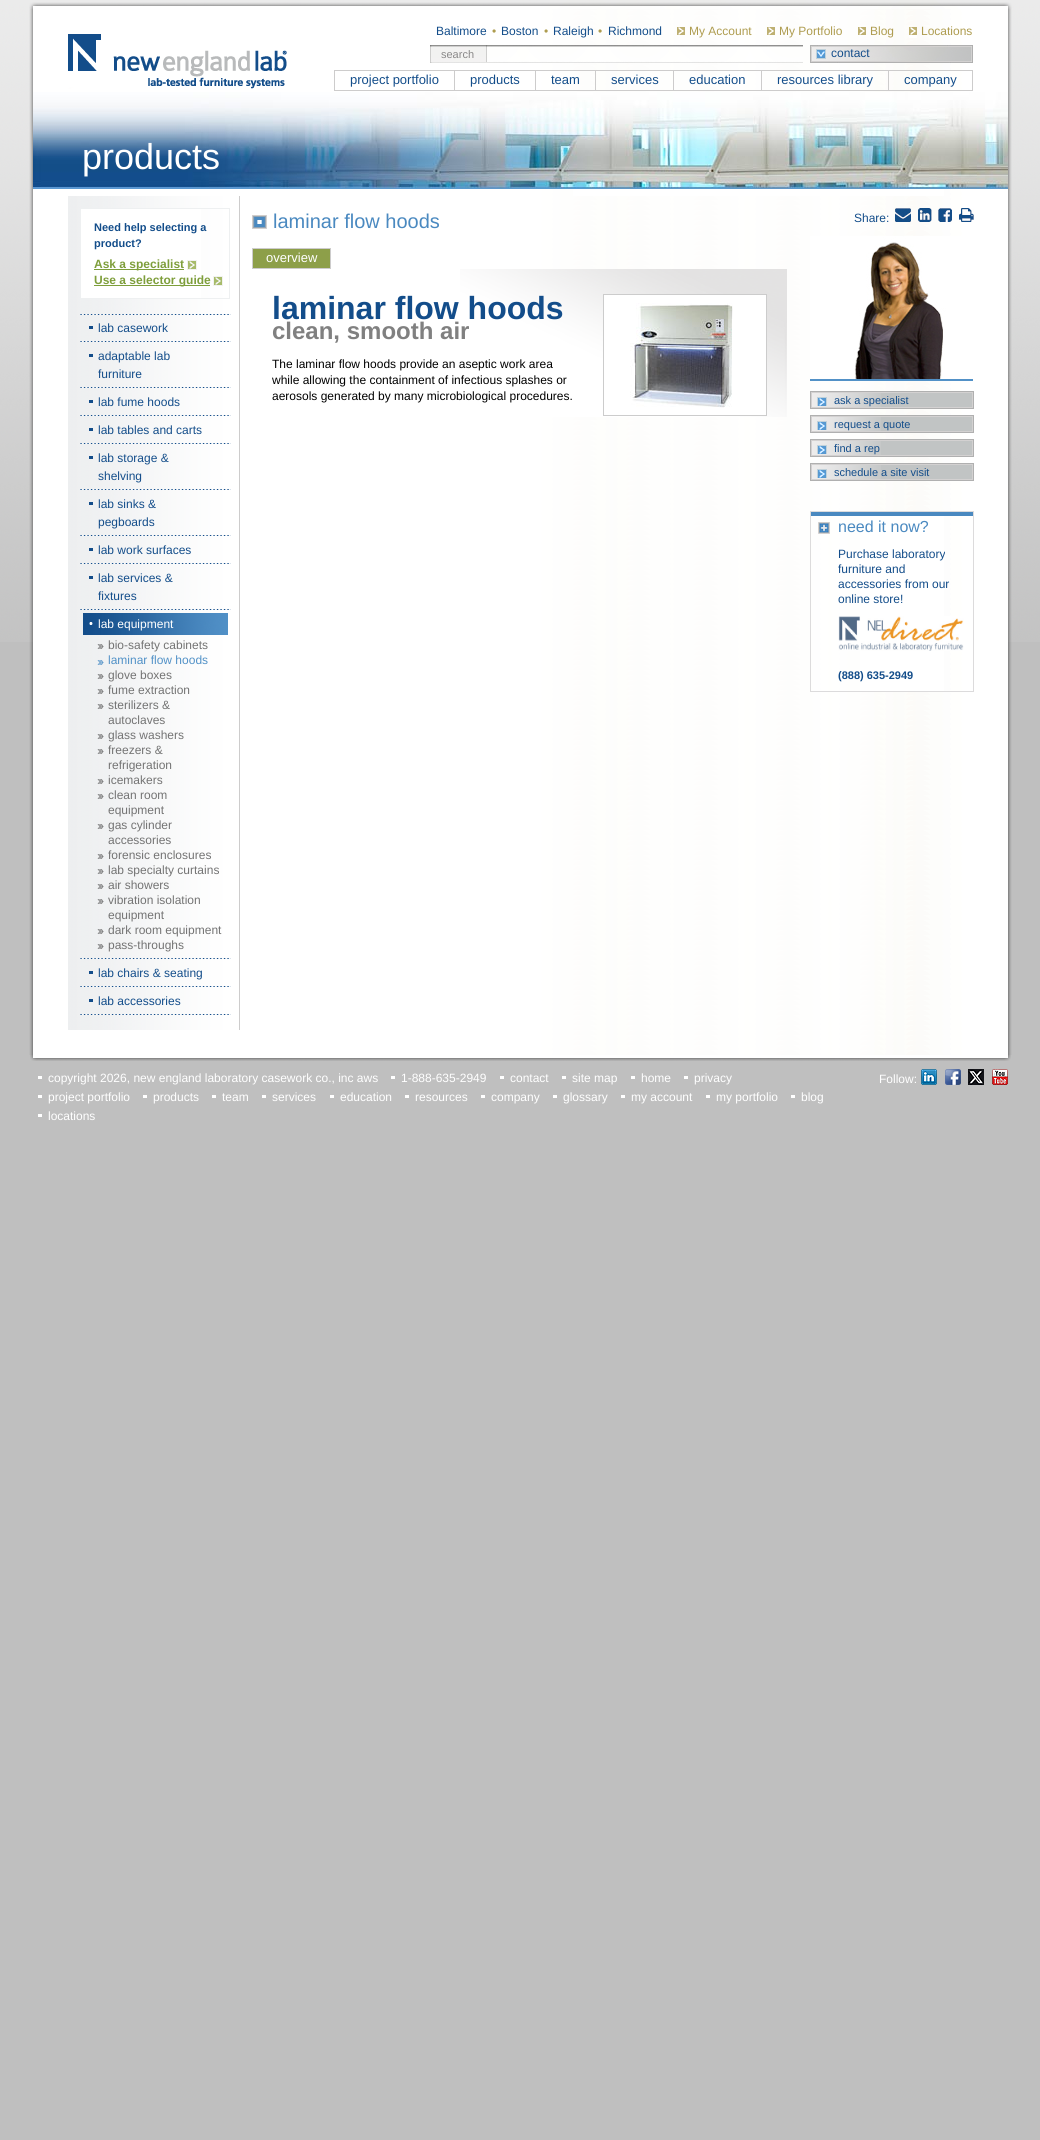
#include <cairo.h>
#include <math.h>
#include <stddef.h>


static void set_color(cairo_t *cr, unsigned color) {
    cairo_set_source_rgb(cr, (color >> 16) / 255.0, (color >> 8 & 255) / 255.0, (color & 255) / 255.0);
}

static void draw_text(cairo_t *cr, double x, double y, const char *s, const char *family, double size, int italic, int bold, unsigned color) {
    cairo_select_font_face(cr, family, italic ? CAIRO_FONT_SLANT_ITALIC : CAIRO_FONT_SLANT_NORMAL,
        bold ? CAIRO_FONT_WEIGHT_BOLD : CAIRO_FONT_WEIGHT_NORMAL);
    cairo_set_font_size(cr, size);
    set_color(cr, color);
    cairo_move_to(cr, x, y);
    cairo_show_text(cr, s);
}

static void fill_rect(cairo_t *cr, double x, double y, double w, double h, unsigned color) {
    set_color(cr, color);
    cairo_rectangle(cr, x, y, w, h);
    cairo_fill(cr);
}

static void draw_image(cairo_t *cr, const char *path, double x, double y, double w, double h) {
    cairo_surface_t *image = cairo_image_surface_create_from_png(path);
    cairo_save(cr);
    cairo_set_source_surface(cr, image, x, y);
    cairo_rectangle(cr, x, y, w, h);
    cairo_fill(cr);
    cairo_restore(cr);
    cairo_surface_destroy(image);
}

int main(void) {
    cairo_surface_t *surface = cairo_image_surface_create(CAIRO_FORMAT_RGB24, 1040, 2140);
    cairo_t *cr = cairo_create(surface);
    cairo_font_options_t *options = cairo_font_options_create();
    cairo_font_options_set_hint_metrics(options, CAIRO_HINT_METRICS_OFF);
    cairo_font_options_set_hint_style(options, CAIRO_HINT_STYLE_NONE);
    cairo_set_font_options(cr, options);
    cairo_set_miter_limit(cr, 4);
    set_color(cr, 0xBFBFBF);
    cairo_paint(cr);
    draw_image(cr, "assets/img1.png", 0, 0, 1040, 642);
    draw_image(cr, "assets/img2.png", 29, 9, 983, 1046);
    draw_image(cr, "assets/img3.png", 29, 0, 983, 9);
    draw_image(cr, "assets/img4.png", 68, 34, 219, 55);
    draw_text(cr, 436, 35, "Baltimore", "Liberation Sans", 12, 0, 0, 0x134D8A);
    draw_text(cr, 492, 35, "•", "Liberation Sans", 12, 0, 0, 0xAE9C4F);
    draw_text(cr, 501, 35, "Boston", "Liberation Sans", 12, 0, 0, 0x134D8A);
    draw_text(cr, 544, 35, "•", "Liberation Sans", 12, 0, 0, 0xAE9C4F);
    draw_text(cr, 553, 35, "Raleigh", "Liberation Sans", 12, 0, 0, 0x134D8A);
    draw_text(cr, 598, 35, "•", "Liberation Sans", 12, 0, 0, 0xAE9C4F);
    draw_text(cr, 608, 35, "Richmond", "Liberation Sans", 12, 0, 0, 0x134D8A);
    draw_image(cr, "assets/img5.png", 677, 27, 8, 8);
    draw_text(cr, 689, 35, "My Account", "Liberation Sans", 12, 0, 0, 0xAE9C4F);
    draw_image(cr, "assets/img5.png", 767, 27, 8, 8);
    draw_text(cr, 779, 35, "My Portfolio", "Liberation Sans", 12, 0, 0, 0xAE9C4F);
    draw_image(cr, "assets/img5.png", 858, 27, 8, 8);
    draw_text(cr, 870, 35, "Blog", "Liberation Sans", 12, 0, 0, 0xAE9C4F);
    draw_image(cr, "assets/img6.png", 909, 27, 8, 11);
    draw_text(cr, 921, 35, "Locations", "Liberation Sans", 12, 0, 0, 0xAE9C4F);
    draw_image(cr, "assets/img7.png", 430, 45, 373, 18);
    draw_text(cr, 441, 58, "search", "Liberation Sans", 11, 0, 0, 0x898888);
    draw_image(cr, "assets/img8.png", 810, 45, 163, 18);
    draw_text(cr, 831, 57, "contact", "Liberation Sans", 12, 0, 0, 0x134D8A);
    cairo_rectangle(cr, 334.5, 70.5, 638, 20);
    set_color(cr, 0xCDCCCC);
    cairo_set_line_width(cr, 1);
    cairo_stroke(cr);
    fill_rect(cr, 454, 71, 1, 19, 0xCDCCCC);
    draw_text(cr, 350, 84, "project portfolio", "Liberation Sans", 13, 0, 0, 0x134D8A);
    fill_rect(cr, 535, 71, 1, 19, 0xCDCCCC);
    draw_text(cr, 470, 84, "products", "Liberation Sans", 13, 0, 0, 0x134D8A);
    fill_rect(cr, 595, 71, 1, 19, 0xCDCCCC);
    draw_text(cr, 551, 84, "team", "Liberation Sans", 13, 0, 0, 0x134D8A);
    fill_rect(cr, 673, 71, 1, 19, 0xCDCCCC);
    draw_text(cr, 611, 84, "services", "Liberation Sans", 13, 0, 0, 0x134D8A);
    fill_rect(cr, 761, 71, 1, 19, 0xCDCCCC);
    draw_text(cr, 689, 84, "education", "Liberation Sans", 13, 0, 0, 0x134D8A);
    fill_rect(cr, 888, 71, 1, 19, 0xCDCCCC);
    draw_text(cr, 777, 84, "resources library", "Liberation Sans", 13, 0, 0, 0x134D8A);
    draw_text(cr, 904, 84, "company", "Liberation Sans", 13, 0, 0, 0x134D8A);
    draw_image(cr, "assets/img9.png", 68, 196, 172, 834);
    draw_image(cr, "assets/img10.png", 33, 92, 975, 97);
    fill_rect(cr, 573, 189, 371, 7, 0xFFFFFF);
    draw_text(cr, 82, 169, "products", "Liberation Sans", 36, 0, 0, 0xFFFFFF);
    fill_rect(cr, 81, 209, 120, 89, 0xFFFFFF);
    cairo_rectangle(cr, 80.5, 208.5, 149, 90);
    set_color(cr, 0xEEF0F1);
    cairo_stroke(cr);
    draw_text(cr, 94, 231, "Need help selecting a", "Liberation Sans", 11, 0, 1, 0x134D8A);
    draw_text(cr, 94, 247, "product?", "Liberation Sans", 11, 0, 1, 0x134D8A);
    fill_rect(cr, 94, 269, 90, 1, 0x7E9E3B);
    draw_text(cr, 94, 268, "Ask a specialist", "Liberation Sans", 12, 0, 1, 0x7E9E3B);
    draw_image(cr, "assets/img11.png", 187, 260, 10, 10);
    fill_rect(cr, 94, 285, 116, 1, 0x7E9E3B);
    draw_text(cr, 94, 284, "Use a selector guide", "Liberation Sans", 12, 0, 1, 0x7E9E3B);
    draw_image(cr, "assets/img11.png", 213, 276, 10, 10);
    draw_image(cr, "assets/img12.png", 80, 314, 151, 1);
    draw_image(cr, "assets/img12.png", 80, 341, 151, 1);
    fill_rect(cr, 89, 326, 4, 3, 0x134D8A);
    draw_text(cr, 98, 332, "lab casework", "Liberation Sans", 12, 0, 0, 0x134D8A);
    draw_image(cr, "assets/img12.png", 80, 387, 151, 1);
    fill_rect(cr, 89, 354, 4, 3, 0x134D8A);
    draw_text(cr, 98, 360, "adaptable lab", "Liberation Sans", 12, 0, 0, 0x134D8A);
    draw_text(cr, 98, 378, "furniture", "Liberation Sans", 12, 0, 0, 0x134D8A);
    draw_image(cr, "assets/img12.png", 80, 415, 151, 1);
    fill_rect(cr, 89, 400, 4, 3, 0x134D8A);
    draw_text(cr, 98, 406, "lab fume hoods", "Liberation Sans", 12, 0, 0, 0x134D8A);
    draw_image(cr, "assets/img12.png", 80, 443, 151, 1);
    fill_rect(cr, 89, 428, 4, 3, 0x134D8A);
    draw_text(cr, 98, 434, "lab tables and carts", "Liberation Sans", 12, 0, 0, 0x134D8A);
    draw_image(cr, "assets/img12.png", 80, 489, 151, 1);
    fill_rect(cr, 89, 456, 4, 3, 0x134D8A);
    draw_text(cr, 98, 462, "lab storage &", "Liberation Sans", 12, 0, 0, 0x134D8A);
    draw_text(cr, 98, 480, "shelving", "Liberation Sans", 12, 0, 0, 0x134D8A);
    draw_image(cr, "assets/img12.png", 80, 535, 151, 1);
    fill_rect(cr, 89, 502, 4, 3, 0x134D8A);
    draw_text(cr, 98, 508, "lab sinks &", "Liberation Sans", 12, 0, 0, 0x134D8A);
    draw_text(cr, 98, 526, "pegboards", "Liberation Sans", 12, 0, 0, 0x134D8A);
    draw_image(cr, "assets/img12.png", 80, 563, 151, 1);
    fill_rect(cr, 89, 548, 4, 3, 0x134D8A);
    draw_text(cr, 98, 554, "lab work surfaces", "Liberation Sans", 12, 0, 0, 0x134D8A);
    draw_image(cr, "assets/img12.png", 80, 609, 151, 1);
    fill_rect(cr, 89, 576, 4, 3, 0x134D8A);
    draw_text(cr, 98, 582, "lab services &", "Liberation Sans", 12, 0, 0, 0x134D8A);
    draw_text(cr, 98, 600, "fixtures", "Liberation Sans", 12, 0, 0, 0x134D8A);
    draw_image(cr, "assets/img12.png", 80, 958, 151, 1);
    draw_image(cr, "assets/img13.png", 83, 613, 145, 22);
    draw_text(cr, 98, 628, "lab equipment", "Liberation Sans", 12, 0, 0, 0xFFFFFF);
    draw_image(cr, "assets/img14.png", 97, 644, 7, 5);
    draw_text(cr, 108, 649, "bio-safety cabinets", "Liberation Sans", 12, 0, 0, 0x737373);
    draw_image(cr, "assets/img15.png", 97, 660, 7, 5);
    draw_text(cr, 108, 664, "laminar flow hoods", "Liberation Sans", 12, 0, 0, 0x5191C7);
    draw_image(cr, "assets/img14.png", 97, 674, 7, 5);
    draw_text(cr, 108, 679, "glove boxes", "Liberation Sans", 12, 0, 0, 0x737373);
    draw_image(cr, "assets/img14.png", 97, 689, 7, 5);
    draw_text(cr, 108, 694, "fume extraction", "Liberation Sans", 12, 0, 0, 0x737373);
    draw_image(cr, "assets/img14.png", 97, 704, 7, 5);
    draw_text(cr, 108, 709, "sterilizers &", "Liberation Sans", 12, 0, 0, 0x737373);
    draw_text(cr, 108, 724, "autoclaves", "Liberation Sans", 12, 0, 0, 0x737373);
    draw_image(cr, "assets/img14.png", 97, 734, 7, 5);
    draw_text(cr, 108, 739, "glass washers", "Liberation Sans", 12, 0, 0, 0x737373);
    draw_image(cr, "assets/img14.png", 97, 749, 7, 5);
    draw_text(cr, 108, 754, "freezers &", "Liberation Sans", 12, 0, 0, 0x737373);
    draw_text(cr, 108, 769, "refrigeration", "Liberation Sans", 12, 0, 0, 0x737373);
    draw_image(cr, "assets/img14.png", 97, 779, 7, 5);
    draw_text(cr, 108, 784, "icemakers", "Liberation Sans", 12, 0, 0, 0x737373);
    draw_image(cr, "assets/img14.png", 97, 794, 7, 5);
    draw_text(cr, 108, 799, "clean room", "Liberation Sans", 12, 0, 0, 0x737373);
    draw_text(cr, 108, 814, "equipment", "Liberation Sans", 12, 0, 0, 0x737373);
    draw_image(cr, "assets/img14.png", 97, 824, 7, 5);
    draw_text(cr, 108, 829, "gas cylinder", "Liberation Sans", 12, 0, 0, 0x737373);
    draw_text(cr, 108, 844, "accessories", "Liberation Sans", 12, 0, 0, 0x737373);
    draw_image(cr, "assets/img14.png", 97, 854, 7, 5);
    draw_text(cr, 108, 859, "forensic enclosures", "Liberation Sans", 12, 0, 0, 0x737373);
    draw_image(cr, "assets/img14.png", 97, 869, 7, 5);
    draw_text(cr, 108, 874, "lab specialty curtains", "Liberation Sans", 12, 0, 0, 0x737373);
    draw_image(cr, "assets/img14.png", 97, 884, 7, 5);
    draw_text(cr, 108, 889, "air showers", "Liberation Sans", 12, 0, 0, 0x737373);
    draw_image(cr, "assets/img14.png", 97, 899, 7, 5);
    draw_text(cr, 108, 904, "vibration isolation", "Liberation Sans", 12, 0, 0, 0x737373);
    draw_text(cr, 108, 919, "equipment", "Liberation Sans", 12, 0, 0, 0x737373);
    draw_image(cr, "assets/img14.png", 97, 929, 7, 5);
    draw_text(cr, 108, 934, "dark room equipment", "Liberation Sans", 12, 0, 0, 0x737373);
    draw_image(cr, "assets/img14.png", 97, 944, 7, 5);
    draw_text(cr, 108, 949, "pass-throughs", "Liberation Sans", 12, 0, 0, 0x737373);
    draw_image(cr, "assets/img12.png", 80, 986, 151, 1);
    fill_rect(cr, 89, 971, 4, 3, 0x134D8A);
    draw_text(cr, 98, 977, "lab chairs & seating", "Liberation Sans", 12, 0, 0, 0x134D8A);
    draw_image(cr, "assets/img12.png", 80, 1014, 151, 1);
    fill_rect(cr, 89, 999, 4, 3, 0x134D8A);
    draw_text(cr, 98, 1005, "lab accessories", "Liberation Sans", 12, 0, 0, 0x134D8A);
    draw_image(cr, "assets/img16.png", 252, 215, 15, 14);
    draw_text(cr, 273, 228, "laminar flow hoods", "Liberation Sans", 20, 0, 0, 0x4A89C0);
    fill_rect(cr, 252, 248, 1, 21, 0xCDCCCC);
    fill_rect(cr, 253, 249, 77, 19, 0x8D9F49);
    fill_rect(cr, 253, 248, 78, 1, 0xCDCCCC);
    fill_rect(cr, 330, 248, 1, 21, 0xCDCCCC);
    fill_rect(cr, 253, 268, 78, 1, 0xCDCCCC);
    draw_text(cr, 266, 262, "overview", "Liberation Sans", 13, 0, 0, 0xFFFFFF);
    draw_image(cr, "assets/img17.png", 460, 269, 327, 148);
    draw_text(cr, 272, 319, "laminar flow hoods", "Liberation Sans", 32, 0, 1, 0x134D8A);
    draw_text(cr, 272, 339, "clean, smooth air", "Liberation Sans", 24, 0, 1, 0x808080);
    set_color(cr, 0xFFFFFF);
    cairo_rectangle(cr, 603.5, 294.5, 163, 121);
    cairo_fill_preserve(cr);
    set_color(cr, 0xCCCCCC);
    cairo_stroke(cr);
    draw_image(cr, "assets/img18.png", 630, 303, 103, 105);
    draw_text(cr, 272, 368, "The laminar flow hoods provide an aseptic work area", "Liberation Sans", 12, 0, 0, 0x000000);
    draw_text(cr, 272, 384, "while allowing the containment of infectious splashes or", "Liberation Sans", 12, 0, 0, 0x000000);
    draw_text(cr, 272, 400, "aerosols generated by many microbiological procedures.", "Liberation Sans", 12, 0, 0, 0x000000);
    draw_text(cr, 854, 222, "Share:", "Liberation Sans", 12, 0, 0, 0x134D8A);
    draw_image(cr, "assets/img19.png", 895, 208, 16, 14);
    draw_image(cr, "assets/img20.png", 918, 208, 14, 14);
    draw_image(cr, "assets/img21.png", 938, 208, 14, 14);
    draw_image(cr, "assets/img22.png", 959, 208, 15, 14);
    draw_image(cr, "assets/img23.png", 810, 236, 163, 145);
    fill_rect(cr, 881, 393, 91, 14, 0xC1C4C4);
    draw_image(cr, "assets/img24.png", 812, 393, 69, 14);
    cairo_rectangle(cr, 810.5, 391.5, 163, 17);
    set_color(cr, 0xB0B0B0);
    cairo_stroke(cr);
    cairo_rectangle(cr, 811.5, 392.5, 161, 15);
    set_color(cr, 0xD3D1D1);
    cairo_stroke(cr);
    draw_image(cr, "assets/img25.png", 817, 397, 10, 9);
    draw_text(cr, 834, 404, "ask a specialist", "Liberation Sans", 11, 0, 0, 0x134D8A);
    fill_rect(cr, 881, 417, 91, 14, 0xC1C4C4);
    draw_image(cr, "assets/img24.png", 812, 417, 69, 14);
    cairo_rectangle(cr, 810.5, 415.5, 163, 17);
    set_color(cr, 0xB0B0B0);
    cairo_stroke(cr);
    cairo_rectangle(cr, 811.5, 416.5, 161, 15);
    set_color(cr, 0xD3D1D1);
    cairo_stroke(cr);
    draw_image(cr, "assets/img25.png", 817, 421, 10, 9);
    draw_text(cr, 834, 428, "request a quote", "Liberation Sans", 11, 0, 0, 0x134D8A);
    fill_rect(cr, 881, 441, 91, 14, 0xC1C4C4);
    draw_image(cr, "assets/img24.png", 812, 441, 69, 14);
    cairo_rectangle(cr, 810.5, 439.5, 163, 17);
    set_color(cr, 0xB0B0B0);
    cairo_stroke(cr);
    cairo_rectangle(cr, 811.5, 440.5, 161, 15);
    set_color(cr, 0xD3D1D1);
    cairo_stroke(cr);
    draw_image(cr, "assets/img25.png", 817, 445, 10, 9);
    draw_text(cr, 834, 452, "find a rep", "Liberation Sans", 11, 0, 0, 0x134D8A);
    fill_rect(cr, 881, 465, 91, 14, 0xC1C4C4);
    draw_image(cr, "assets/img24.png", 812, 465, 69, 14);
    cairo_rectangle(cr, 810.5, 463.5, 163, 17);
    set_color(cr, 0xB0B0B0);
    cairo_stroke(cr);
    cairo_rectangle(cr, 811.5, 464.5, 161, 15);
    set_color(cr, 0xD3D1D1);
    cairo_stroke(cr);
    draw_image(cr, "assets/img25.png", 817, 469, 10, 9);
    draw_text(cr, 834, 476, "schedule a site visit", "Liberation Sans", 11, 0, 0, 0x134D8A);
    fill_rect(cr, 860, 516, 84, 175, 0xFFFFFF);
    fill_rect(cr, 811, 512, 163, 4, 0x4A89C0);
    cairo_rectangle(cr, 810.5, 511.5, 163, 180);
    set_color(cr, 0xDCDBDC);
    cairo_stroke(cr);
    draw_image(cr, "assets/img26.png", 818, 522, 12, 12);
    draw_text(cr, 838, 532, "need it now?", "Liberation Sans", 16, 0, 0, 0x4A89C0);
    draw_text(cr, 838, 558, "Purchase laboratory", "Liberation Sans", 12, 0, 0, 0x134D8A);
    draw_text(cr, 838, 573, "furniture and", "Liberation Sans", 12, 0, 0, 0x134D8A);
    draw_text(cr, 838, 588, "accessories from our", "Liberation Sans", 12, 0, 0, 0x134D8A);
    draw_text(cr, 838, 603, "online store!", "Liberation Sans", 12, 0, 0, 0x134D8A);
    draw_image(cr, "assets/img27.png", 838, 616, 126, 35);
    draw_text(cr, 838, 679, "(888) 635-2949", "Liberation Sans", 11, 0, 1, 0x134D8A);
    draw_image(cr, "assets/img28.png", 30, 1055, 981, 6);
    draw_text(cr, 48, 1082, "copyright 2026, new england laboratory casework co., inc aws", "Liberation Sans", 12, 0, 0, 0xFFFFFF);
    fill_rect(cr, 38, 1076, 4, 3, 0xFFFFFF);
    draw_text(cr, 401, 1082, "1-888-635-2949", "Liberation Sans", 12, 0, 0, 0xFFFFFF);
    fill_rect(cr, 391, 1076, 4, 3, 0xFFFFFF);
    draw_text(cr, 510, 1082, "contact", "Liberation Sans", 12, 0, 0, 0xFFFFFF);
    fill_rect(cr, 500, 1076, 4, 3, 0xFFFFFF);
    draw_text(cr, 572, 1082, "site map", "Liberation Sans", 12, 0, 0, 0xFFFFFF);
    fill_rect(cr, 562, 1076, 4, 3, 0xFFFFFF);
    draw_text(cr, 641, 1082, "home", "Liberation Sans", 12, 0, 0, 0xFFFFFF);
    fill_rect(cr, 631, 1076, 4, 3, 0xFFFFFF);
    draw_text(cr, 694, 1082, "privacy", "Liberation Sans", 12, 0, 0, 0xFFFFFF);
    fill_rect(cr, 684, 1076, 4, 3, 0xFFFFFF);
    draw_text(cr, 48, 1101, "project portfolio", "Liberation Sans", 12, 0, 0, 0xFFFFFF);
    fill_rect(cr, 38, 1095, 4, 3, 0xFFFFFF);
    draw_text(cr, 153, 1101, "products", "Liberation Sans", 12, 0, 0, 0xFFFFFF);
    fill_rect(cr, 143, 1095, 4, 3, 0xFFFFFF);
    draw_text(cr, 222, 1101, "team", "Liberation Sans", 12, 0, 0, 0xFFFFFF);
    fill_rect(cr, 212, 1095, 4, 3, 0xFFFFFF);
    draw_text(cr, 272, 1101, "services", "Liberation Sans", 12, 0, 0, 0xFFFFFF);
    fill_rect(cr, 262, 1095, 4, 3, 0xFFFFFF);
    draw_text(cr, 340, 1101, "education", "Liberation Sans", 12, 0, 0, 0xFFFFFF);
    fill_rect(cr, 330, 1095, 4, 3, 0xFFFFFF);
    draw_text(cr, 415, 1101, "resources", "Liberation Sans", 12, 0, 0, 0xFFFFFF);
    fill_rect(cr, 405, 1095, 4, 3, 0xFFFFFF);
    draw_text(cr, 491, 1101, "company", "Liberation Sans", 12, 0, 0, 0xFFFFFF);
    fill_rect(cr, 481, 1095, 4, 3, 0xFFFFFF);
    draw_text(cr, 563, 1101, "glossary", "Liberation Sans", 12, 0, 0, 0xFFFFFF);
    fill_rect(cr, 553, 1095, 4, 3, 0xFFFFFF);
    draw_text(cr, 631, 1101, "my account", "Liberation Sans", 12, 0, 0, 0xFFFFFF);
    fill_rect(cr, 621, 1095, 4, 3, 0xFFFFFF);
    draw_text(cr, 716, 1101, "my portfolio", "Liberation Sans", 12, 0, 0, 0xFFFFFF);
    fill_rect(cr, 706, 1095, 4, 3, 0xFFFFFF);
    draw_text(cr, 801, 1101, "blog", "Liberation Sans", 12, 0, 0, 0xFFFFFF);
    fill_rect(cr, 791, 1095, 4, 3, 0xFFFFFF);
    draw_text(cr, 48, 1120, "locations", "Liberation Sans", 12, 0, 0, 0xFFFFFF);
    fill_rect(cr, 38, 1114, 4, 3, 0xFFFFFF);
    draw_text(cr, 879, 1083, "Follow:", "Liberation Sans", 12, 0, 0, 0xFFFFFF);
    draw_image(cr, "assets/img29.png", 921, 1069, 16, 16);
    draw_image(cr, "assets/img30.png", 945, 1069, 16, 16);
    draw_image(cr, "assets/img31.png", 968, 1069, 16, 16);
    draw_image(cr, "assets/img32.png", 992, 1069, 16, 16);
    cairo_surface_write_to_png(surface, "output.png");
    cairo_font_options_destroy(options);
    cairo_destroy(cr);
    cairo_surface_destroy(surface);
    return 0;
}
